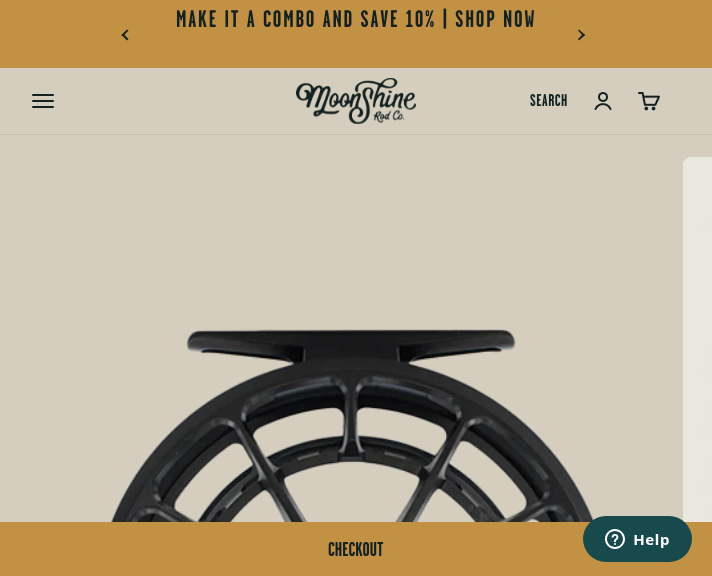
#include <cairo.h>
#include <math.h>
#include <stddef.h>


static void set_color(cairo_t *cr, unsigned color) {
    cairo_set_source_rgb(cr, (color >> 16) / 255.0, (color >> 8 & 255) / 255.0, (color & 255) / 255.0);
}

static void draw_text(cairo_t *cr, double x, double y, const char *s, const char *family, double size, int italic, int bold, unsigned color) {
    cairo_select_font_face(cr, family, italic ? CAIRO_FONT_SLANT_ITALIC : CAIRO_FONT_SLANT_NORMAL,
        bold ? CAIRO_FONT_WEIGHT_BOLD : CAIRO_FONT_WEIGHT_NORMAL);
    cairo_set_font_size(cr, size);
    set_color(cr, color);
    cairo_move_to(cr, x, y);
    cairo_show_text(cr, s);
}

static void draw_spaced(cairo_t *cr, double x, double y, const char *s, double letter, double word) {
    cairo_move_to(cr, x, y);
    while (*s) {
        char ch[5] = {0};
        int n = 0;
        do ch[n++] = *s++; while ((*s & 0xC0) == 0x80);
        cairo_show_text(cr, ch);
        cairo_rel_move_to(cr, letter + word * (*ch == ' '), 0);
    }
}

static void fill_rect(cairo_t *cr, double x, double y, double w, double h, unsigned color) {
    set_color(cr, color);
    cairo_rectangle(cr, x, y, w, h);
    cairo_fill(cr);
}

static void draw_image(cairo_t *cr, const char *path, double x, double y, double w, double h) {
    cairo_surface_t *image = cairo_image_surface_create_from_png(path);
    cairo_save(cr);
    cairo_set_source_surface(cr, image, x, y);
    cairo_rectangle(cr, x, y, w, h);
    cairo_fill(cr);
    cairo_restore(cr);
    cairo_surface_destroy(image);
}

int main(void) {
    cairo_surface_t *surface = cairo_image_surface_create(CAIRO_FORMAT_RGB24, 712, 576);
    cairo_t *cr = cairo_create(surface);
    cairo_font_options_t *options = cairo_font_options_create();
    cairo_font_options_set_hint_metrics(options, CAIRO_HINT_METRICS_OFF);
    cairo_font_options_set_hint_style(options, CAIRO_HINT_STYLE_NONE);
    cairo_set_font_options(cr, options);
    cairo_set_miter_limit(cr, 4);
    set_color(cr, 0xD5CEBE);
    cairo_paint(cr);
    fill_rect(cr, 0, 0, 712, 68, 0xC39143);
    cairo_select_font_face(cr, "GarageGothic", CAIRO_FONT_SLANT_NORMAL, CAIRO_FONT_WEIGHT_BOLD);
    cairo_set_font_size(cr, 24);
    set_color(cr, 0x142122);
    draw_spaced(cr, 176, 27, "MAKE IT A COMBO AND SAVE 10% | SHOP NOW", 1.75, 0);
    cairo_new_path(cr);
    cairo_move_to(cr, 121.5, 35);
    cairo_line_to(cr, 127, 29.5);
    cairo_line_to(cr, 128.5, 30.5);
    cairo_line_to(cr, 123, 36.5);
    cairo_close_path(cr);
    cairo_fill(cr);
    cairo_new_path(cr);
    cairo_move_to(cr, 121.5, 35);
    cairo_line_to(cr, 123, 33.5);
    cairo_line_to(cr, 128.5, 39);
    cairo_line_to(cr, 127, 40.5);
    cairo_close_path(cr);
    cairo_fill(cr);
    cairo_new_path(cr);
    cairo_move_to(cr, 578, 30.5);
    cairo_line_to(cr, 579, 29.5);
    cairo_line_to(cr, 585, 35);
    cairo_line_to(cr, 583.5, 36.5);
    cairo_close_path(cr);
    cairo_fill(cr);
    cairo_new_path(cr);
    cairo_move_to(cr, 578, 39);
    cairo_line_to(cr, 583.5, 33.5);
    cairo_line_to(cr, 585, 35);
    cairo_line_to(cr, 579, 40.5);
    cairo_close_path(cr);
    cairo_fill(cr);
    fill_rect(cr, 0, 134, 712, 1, 0xC8BAAD);
    draw_image(cr, "assets/img1.png", 32, 94, 22, 14);
    draw_image(cr, "assets/img2.png", 296, 78, 120, 46);
    cairo_set_font_size(cr, 17);
    set_color(cr, 0x142122);
    draw_spaced(cr, 530, 106, "SEARCH", 0.5, 0);
    cairo_new_path(cr);
    cairo_arc(cr, 603, 97, 4, 0, 2 * M_PI);
    cairo_stroke(cr);
    cairo_new_path(cr);
    cairo_move_to(cr, 595.5, 109);
    cairo_curve_to(cr, 598.5, 102.5, 607.5, 102.5, 610.5, 109);
    cairo_set_line_cap(cr, CAIRO_LINE_CAP_ROUND);
    cairo_stroke(cr);
    draw_image(cr, "assets/img3.png", 638, 92, 22, 19);
    draw_image(cr, "assets/img4.png", 110, 329, 485, 193);
    draw_image(cr, "assets/img5.png", 683, 157, 29, 365);
    fill_rect(cr, 0, 522, 712, 54, 0xC39143);
    draw_text(cr, 328, 556, "CHECKOUT", "GarageGothic", 20, 0, 1, 0x142122);
    draw_image(cr, "assets/img6.png", 583, 516, 109, 46);
    cairo_surface_write_to_png(surface, "output.png");
    cairo_font_options_destroy(options);
    cairo_destroy(cr);
    cairo_surface_destroy(surface);
    return 0;
}
